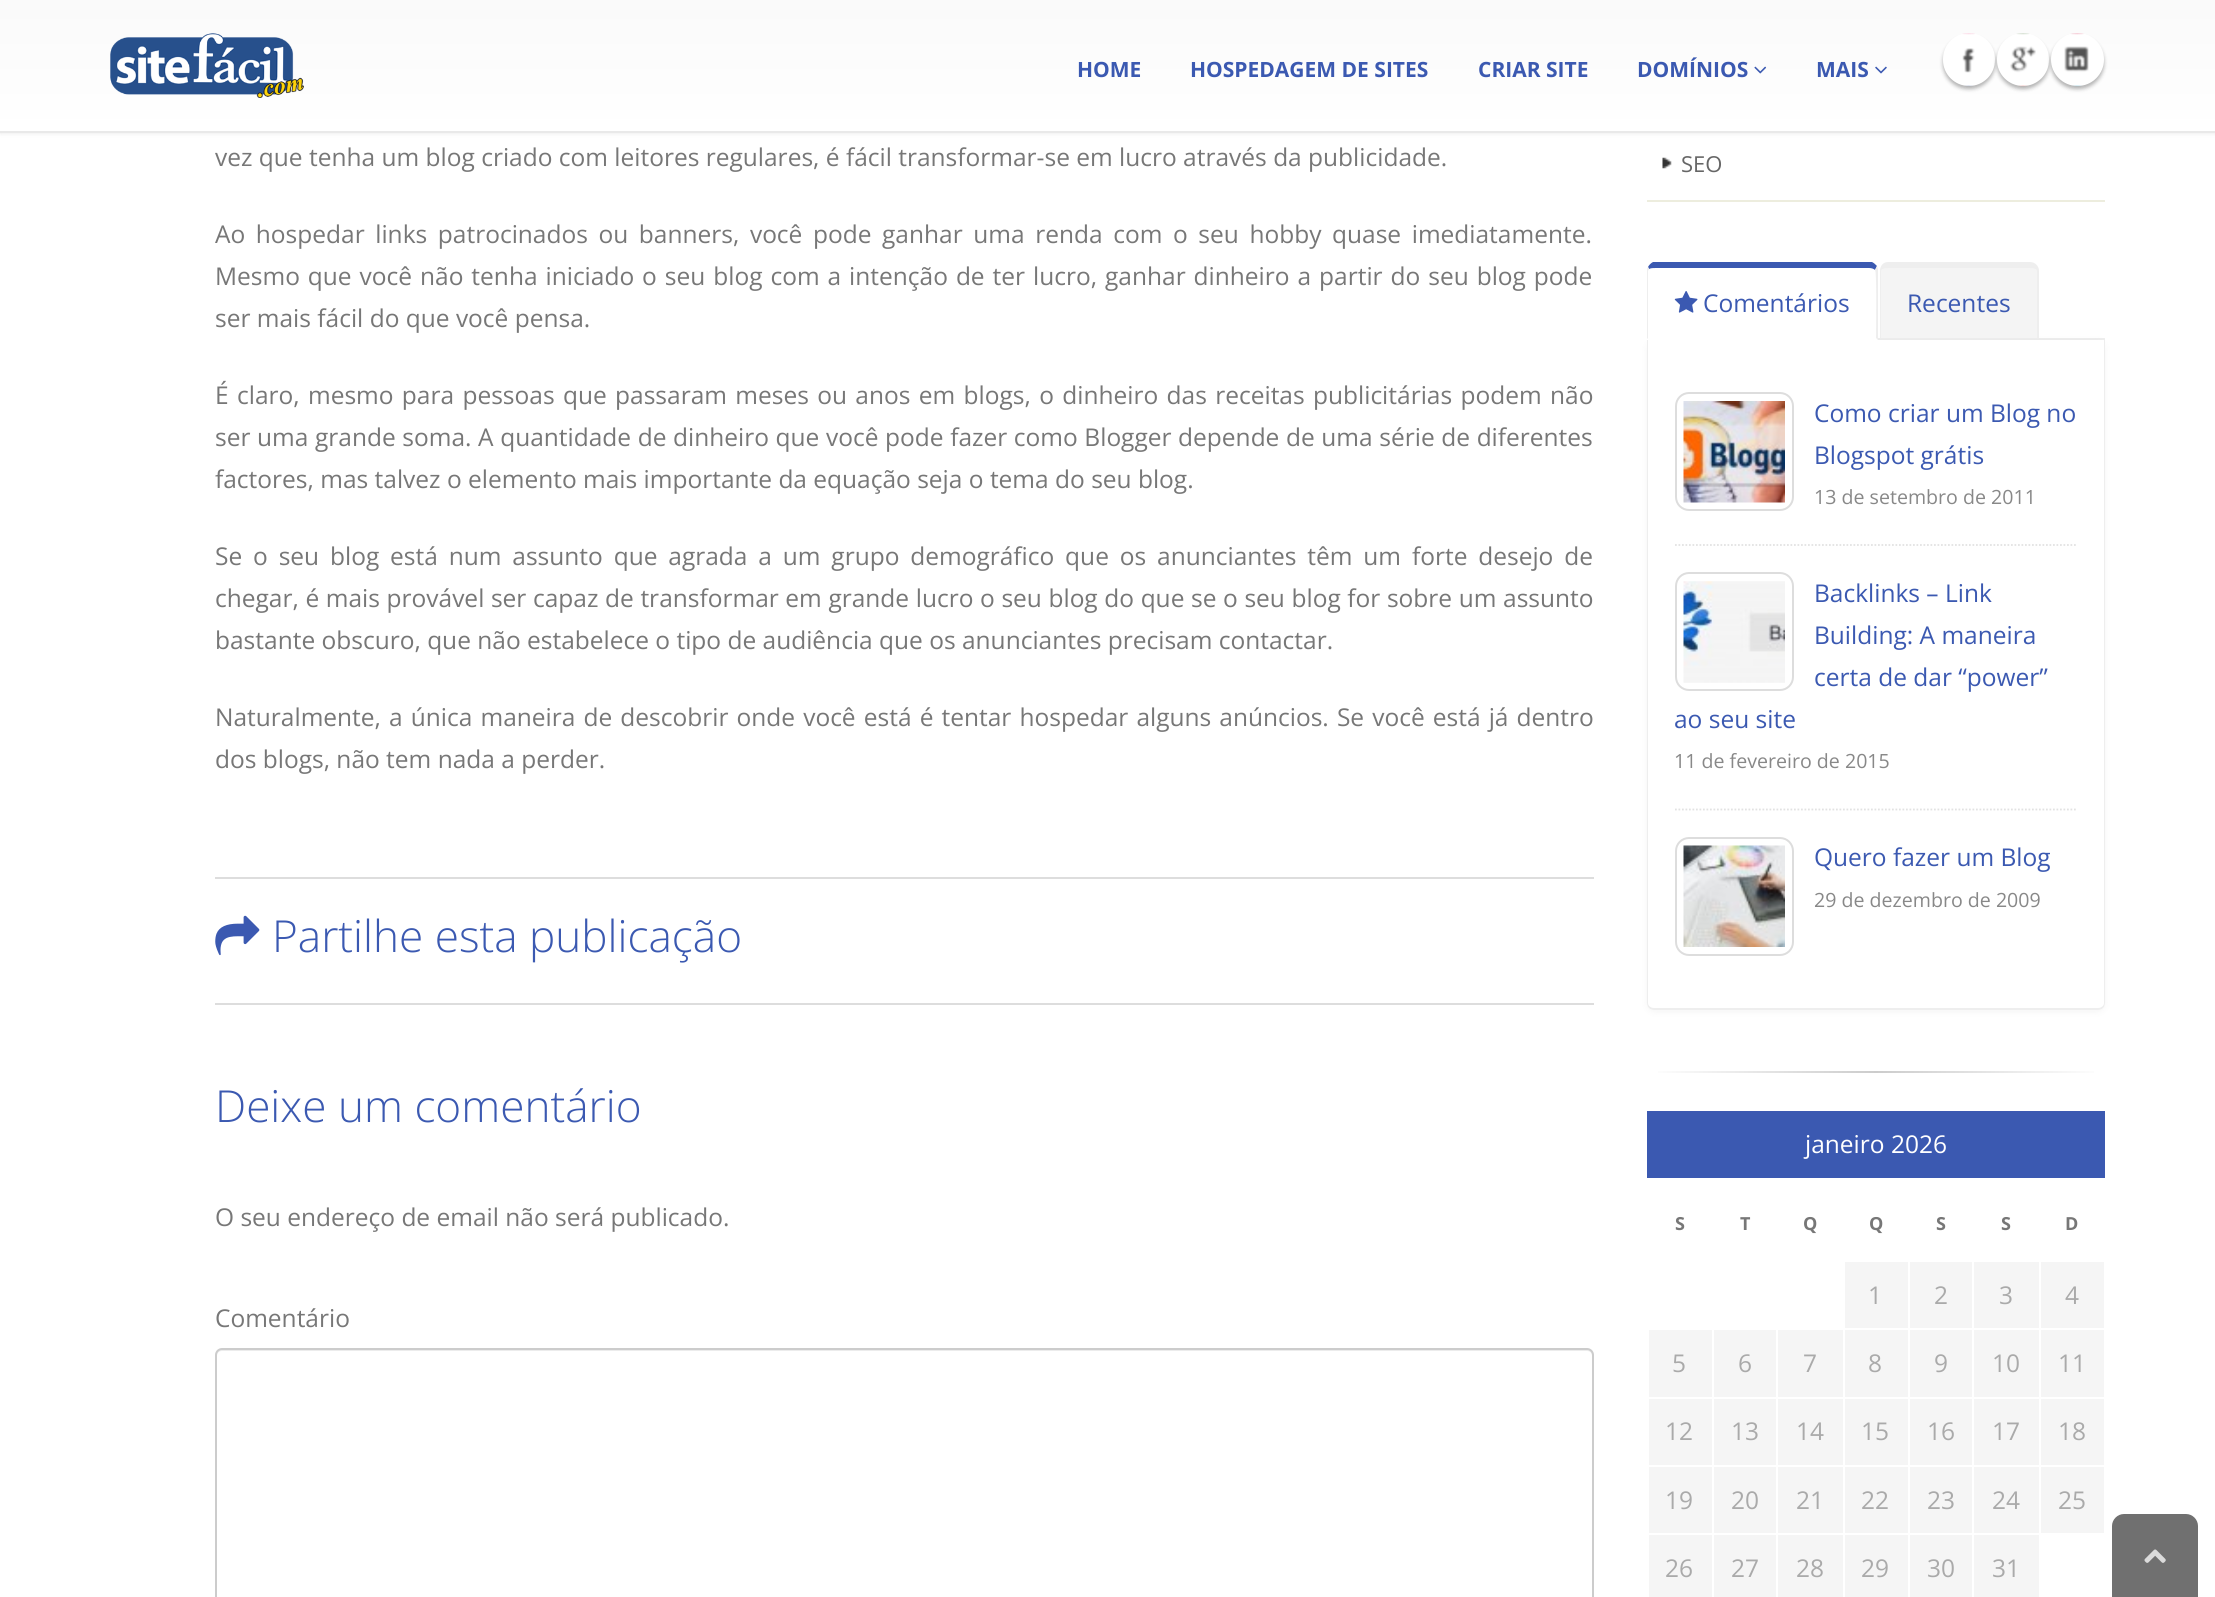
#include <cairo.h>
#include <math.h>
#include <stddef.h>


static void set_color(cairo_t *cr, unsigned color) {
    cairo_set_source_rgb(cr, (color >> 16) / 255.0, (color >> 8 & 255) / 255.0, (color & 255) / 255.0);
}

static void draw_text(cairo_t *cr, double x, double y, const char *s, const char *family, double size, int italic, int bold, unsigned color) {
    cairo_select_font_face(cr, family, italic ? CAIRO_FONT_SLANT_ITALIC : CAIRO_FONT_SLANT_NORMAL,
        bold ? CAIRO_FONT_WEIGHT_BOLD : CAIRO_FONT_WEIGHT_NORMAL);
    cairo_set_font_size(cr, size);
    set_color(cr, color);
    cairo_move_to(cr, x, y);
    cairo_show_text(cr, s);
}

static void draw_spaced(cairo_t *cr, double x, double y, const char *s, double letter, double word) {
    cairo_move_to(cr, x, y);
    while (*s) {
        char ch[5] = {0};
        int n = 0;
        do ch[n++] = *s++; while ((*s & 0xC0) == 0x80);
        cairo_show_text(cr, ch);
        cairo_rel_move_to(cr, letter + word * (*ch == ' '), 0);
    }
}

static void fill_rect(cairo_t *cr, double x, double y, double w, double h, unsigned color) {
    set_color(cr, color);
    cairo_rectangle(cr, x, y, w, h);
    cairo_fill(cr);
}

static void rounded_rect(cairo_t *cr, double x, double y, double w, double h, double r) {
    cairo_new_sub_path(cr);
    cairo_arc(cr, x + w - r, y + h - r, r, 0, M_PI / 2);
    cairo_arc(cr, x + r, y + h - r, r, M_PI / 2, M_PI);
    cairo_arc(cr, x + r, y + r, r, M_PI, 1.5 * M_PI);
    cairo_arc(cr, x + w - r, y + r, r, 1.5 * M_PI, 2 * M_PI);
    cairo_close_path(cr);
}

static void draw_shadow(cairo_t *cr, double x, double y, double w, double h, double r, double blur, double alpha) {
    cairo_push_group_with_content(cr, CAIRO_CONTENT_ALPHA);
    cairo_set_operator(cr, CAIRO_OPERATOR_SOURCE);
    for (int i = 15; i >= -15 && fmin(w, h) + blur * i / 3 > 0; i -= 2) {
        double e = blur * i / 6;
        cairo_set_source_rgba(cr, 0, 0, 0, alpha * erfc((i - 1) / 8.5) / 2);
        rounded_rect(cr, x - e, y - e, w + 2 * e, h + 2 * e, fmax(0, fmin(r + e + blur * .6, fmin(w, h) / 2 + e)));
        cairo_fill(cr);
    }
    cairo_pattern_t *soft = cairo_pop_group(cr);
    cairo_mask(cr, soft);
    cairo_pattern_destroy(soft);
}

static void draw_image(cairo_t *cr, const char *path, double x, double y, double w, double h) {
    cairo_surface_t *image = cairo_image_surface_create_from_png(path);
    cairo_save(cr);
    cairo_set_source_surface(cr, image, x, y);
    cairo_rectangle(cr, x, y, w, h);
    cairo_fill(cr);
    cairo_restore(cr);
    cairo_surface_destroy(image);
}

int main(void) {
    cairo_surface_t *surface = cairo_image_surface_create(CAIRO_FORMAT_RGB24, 2215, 1597);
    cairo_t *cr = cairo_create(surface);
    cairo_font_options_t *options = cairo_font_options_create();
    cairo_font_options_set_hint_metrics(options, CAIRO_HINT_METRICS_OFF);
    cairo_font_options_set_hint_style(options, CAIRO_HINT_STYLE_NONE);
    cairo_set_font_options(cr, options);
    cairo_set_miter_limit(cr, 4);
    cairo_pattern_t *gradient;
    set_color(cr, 0xFFFFFF);
    cairo_paint(cr);
    set_color(cr, 0x000000);
    draw_shadow(cr, 0, -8, 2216, 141, 0, 2.5, 0.1);
    gradient = cairo_pattern_create_linear(1108, -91, 1108, 131);
    cairo_pattern_add_color_stop_rgba(gradient, 0, 0.965, 0.965, 0.965, 1);
    cairo_pattern_add_color_stop_rgba(gradient, 1, 1, 1, 1, 1);
    cairo_set_source(cr, gradient);
    cairo_pattern_destroy(gradient);
    cairo_rectangle(cr, 0, 0, 2215, 131);
    cairo_fill(cr);
    fill_rect(cr, 0, 131, 2215, 2, 0xE9E9E9);
    draw_image(cr, "assets/img1.png", 110, 33, 194, 65);
    draw_text(cr, 1077, 77, "HOME", "Open Sans", 21, 0, 1, 0x3B59B1);
    draw_text(cr, 1190, 77, "HOSPEDAGEM DE SITES", "Open Sans", 21, 0, 1, 0x3B59B1);
    draw_text(cr, 1478, 77, "CRIAR SITE", "Open Sans", 21, 0, 1, 0x3B59B1);
    draw_text(cr, 1637, 77, "DOMÍNIOS", "Open Sans", 21, 0, 1, 0x3B59B1);
    draw_image(cr, "assets/img2.png", 1754, 66, 13, 8);
    draw_text(cr, 1816, 77, "MAIS", "Open Sans", 21, 0, 1, 0x3B59B1);
    draw_image(cr, "assets/img3.png", 1875, 66, 12, 8);
    set_color(cr, 0x000000);
    draw_shadow(cr, 1943, 37, 52, 52, 26, 2, 0.3);
    set_color(cr, 0xFFFFFF);
    rounded_rect(cr, 1943, 33, 52, 53, 26);
    cairo_fill(cr);
    draw_image(cr, "assets/img4.png", 1962, 33, 13, 54);
    set_color(cr, 0x000000);
    draw_shadow(cr, 1997, 37, 52, 52, 26, 2, 0.3);
    set_color(cr, 0xFFFFFF);
    rounded_rect(cr, 1997, 33, 52, 53, 26);
    cairo_fill(cr);
    draw_image(cr, "assets/img5.png", 2010, 33, 26, 54);
    set_color(cr, 0x000000);
    draw_shadow(cr, 2051, 37, 53, 52, 26, 2, 0.3);
    set_color(cr, 0xFFFFFF);
    cairo_arc(cr, 2077.5, 59.5, 26.5, 0, 2 * M_PI);
    cairo_fill(cr);
    draw_image(cr, "assets/img6.png", 2064, 33, 25, 54);
    draw_text(cr, 215, 166, "vez que tenha um blog criado com leitores regulares, é fácil transformar-se em lucro através da publicidade.", "Open Sans", 24.5, 0, 0, 0x777777);
    draw_spaced(cr, 215, 243, "Ao hospedar links patrocinados ou banners, você pode ganhar uma renda com o seu hobby quase imediatamente.", 0, 4.25);
    draw_spaced(cr, 215, 285, "Mesmo que você não tenha iniciado o seu blog com a intenção de ter lucro, ganhar dinheiro a partir do seu blog pode", 0, 1.6);
    draw_text(cr, 215, 327, "ser mais fácil do que você pensa.", "Open Sans", 24.5, 0, 0, 0x777777);
    draw_spaced(cr, 215, 404, "É claro, mesmo para pessoas que passaram meses ou anos em blogs, o dinheiro das receitas publicitárias podem não", 0, 2);
    draw_spaced(cr, 215, 446, "ser uma grande soma. A quantidade de dinheiro que você pode fazer como Blogger depende de uma série de diferentes", 0, 0.25);
    draw_text(cr, 215, 488, "factores, mas talvez o elemento mais importante da equação seja o tema do seu blog.", "Open Sans", 24.5, 0, 0, 0x777777);
    draw_spaced(cr, 215, 565, "Se o seu blog está num assunto que agrada a um grupo demográfico que os anunciantes têm um forte desejo de", 0, 4.5);
    draw_spaced(cr, 215, 607, "chegar, é mais provável ser capaz de transformar em grande lucro o seu blog do que se o seu blog for sobre um assunto", 0, 0.25);
    draw_text(cr, 215, 649, "bastante obscuro, que não estabelece o tipo de audiência que os anunciantes precisam contactar.", "Open Sans", 24.5, 0, 0, 0x777777);
    draw_spaced(cr, 215, 726, "Naturalmente, a única maneira de descobrir onde você está é tentar hospedar alguns anúncios. Se você está já dentro", 0, 1.75);
    draw_text(cr, 215, 768, "dos blogs, não tem nada a perder.", "Open Sans", 24.5, 0, 0, 0x777777);
    fill_rect(cr, 215, 877, 1379, 2, 0xDDDDDD);
    draw_image(cr, "assets/img7.png", 215, 915, 45, 41);
    draw_text(cr, 272, 952, "Partilhe esta publicação", "Open Sans Light", 44.1, 0, 0, 0x3B59B1);
    fill_rect(cr, 215, 1003, 1379, 2, 0xDDDDDD);
    draw_text(cr, 215, 1122, "Deixe um comentário", "Open Sans Light", 44.1, 0, 0, 0x3B59B1);
    draw_text(cr, 215, 1226, "O seu endereço de email não será publicado.", "Open Sans", 24.5, 0, 0, 0x777777);
    draw_text(cr, 215, 1327, "Comentário", "Open Sans", 24.5, 0, 0, 0x777777);
    set_color(cr, 0xECECEC);
    cairo_new_path(cr);
    cairo_move_to(cr, 222, 1351);
    cairo_line_to(cr, 1587, 1351);
    cairo_curve_to(cr, 1590, 1351, 1592, 1353, 1592, 1356);
    cairo_line_to(cr, 1592, 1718);
    cairo_curve_to(cr, 1593, 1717, 1593, 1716, 1593, 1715);
    cairo_line_to(cr, 1593, 1354);
    cairo_curve_to(cr, 1593, 1351, 1591, 1349, 1588, 1349);
    cairo_line_to(cr, 222, 1349);
    cairo_curve_to(cr, 219, 1349, 217, 1351, 217, 1354);
    cairo_line_to(cr, 217, 1356);
    cairo_curve_to(cr, 217, 1353, 219, 1351, 222, 1351);
    cairo_close_path(cr);
    cairo_fill(cr);
    rounded_rect(cr, 216, 1349, 1377, 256, 6);
    set_color(cr, 0xCCCCCC);
    cairo_stroke(cr);
    draw_image(cr, "assets/img8.png", 1662, 157, 10, 12);
    fill_rect(cr, 1647, 200, 458, 2, 0xEDEDDE);
    draw_text(cr, 1681, 172, "SEO", "Open Sans", 22, 0, 0, 0x666666);
    fill_rect(cr, 1878, 338, 227, 2, 0xEEEEEE);
    set_color(cr, 0x000000);
    draw_shadow(cr, 1647, 341, 458, 671, 7, 4.5, 0.04);
    set_color(cr, 0xFFFFFF);
    cairo_new_path(cr);
    cairo_move_to(cr, 1656, 263);
    cairo_line_to(cr, 1869, 263);
    cairo_curve_to(cr, 1874, 263, 1878, 267, 1878, 272);
    cairo_line_to(cr, 1878, 340);
    cairo_line_to(cr, 1647, 340);
    cairo_line_to(cr, 1647, 272);
    cairo_curve_to(cr, 1647, 267, 1651, 263, 1656, 263);
    cairo_close_path(cr);
    cairo_fill(cr);
    set_color(cr, 0x3B59B1);
    cairo_new_path(cr);
    cairo_move_to(cr, 1656, 268);
    cairo_curve_to(cr, 1653, 268, 1651, 268, 1649, 269);
    cairo_line_to(cr, 1648, 267);
    cairo_curve_to(cr, 1649, 265, 1651, 263, 1653, 262);
    cairo_line_to(cr, 1872, 262);
    cairo_curve_to(cr, 1874, 263, 1875, 264, 1877, 266);
    cairo_line_to(cr, 1875, 270);
    cairo_curve_to(cr, 1874, 269, 1872, 268, 1869, 268);
    cairo_close_path(cr);
    cairo_fill(cr);
    set_color(cr, 0xEEEEEE);
    cairo_new_path(cr);
    cairo_move_to(cr, 1877, 266);
    cairo_line_to(cr, 1878, 269);
    cairo_line_to(cr, 1878, 340);
    cairo_line_to(cr, 1876, 338);
    cairo_curve_to(cr, 1876, 331, 1877, 271, 1875, 270);
    cairo_close_path(cr);
    cairo_fill(cr);
    cairo_new_path(cr);
    cairo_move_to(cr, 1647, 339);
    cairo_line_to(cr, 1647, 271);
    cairo_curve_to(cr, 1647, 269, 1647, 268, 1648, 267);
    cairo_line_to(cr, 1649, 269);
    cairo_line_to(cr, 1648, 271);
    cairo_line_to(cr, 1648, 338);
    cairo_close_path(cr);
    cairo_fill(cr);
    draw_image(cr, "assets/img9.png", 1674, 291, 24, 22);
    draw_text(cr, 1703, 312, "Comentários", "Open Sans", 24.5, 0, 0, 0x3B59B1);
    set_color(cr, 0xF4F4F4);
    cairo_new_path(cr);
    cairo_move_to(cr, 1889, 263);
    cairo_line_to(cr, 2030, 263);
    cairo_curve_to(cr, 2035, 263, 2039, 267, 2039, 272);
    cairo_line_to(cr, 2039, 338);
    cairo_line_to(cr, 1880, 338);
    cairo_line_to(cr, 1880, 272);
    cairo_curve_to(cr, 1880, 267, 1884, 263, 1889, 263);
    cairo_close_path(cr);
    cairo_fill(cr);
    set_color(cr, 0xEEEEEE);
    cairo_set_fill_rule(cr, CAIRO_FILL_RULE_EVEN_ODD);
    cairo_new_path(cr);
    cairo_move_to(cr, 1888, 262);
    cairo_line_to(cr, 2030, 262);
    cairo_curve_to(cr, 2035, 262, 2039, 266, 2039, 271);
    cairo_line_to(cr, 2039, 338);
    cairo_line_to(cr, 1880, 338);
    cairo_line_to(cr, 1880, 271);
    cairo_curve_to(cr, 1880, 266, 1883, 262, 1888, 262);
    cairo_close_path(cr);
    cairo_move_to(cr, 1888, 268);
    cairo_line_to(cr, 2030, 268);
    cairo_curve_to(cr, 2034, 268, 2037, 269, 2037, 271);
    cairo_line_to(cr, 2037, 338);
    cairo_line_to(cr, 1881, 338);
    cairo_line_to(cr, 1881, 271);
    cairo_curve_to(cr, 1881, 269, 1884, 268, 1888, 268);
    cairo_close_path(cr);
    cairo_fill(cr);
    draw_text(cr, 1907, 312, "Recentes", "Open Sans", 24.5, 0, 0, 0x3B59B1);
    set_color(cr, 0xFFFFFF);
    cairo_new_path(cr);
    cairo_move_to(cr, 1647, 340);
    cairo_line_to(cr, 2105, 340);
    cairo_line_to(cr, 2105, 1003);
    cairo_curve_to(cr, 2105, 1007, 2102, 1010, 2098, 1010);
    cairo_line_to(cr, 1654, 1010);
    cairo_curve_to(cr, 1650, 1010, 1647, 1007, 1647, 1003);
    cairo_close_path(cr);
    cairo_fill(cr);
    set_color(cr, 0xEEEEEE);
    cairo_new_path(cr);
    cairo_move_to(cr, 1647, 340);
    cairo_line_to(cr, 2105, 340);
    cairo_line_to(cr, 2105, 1003);
    cairo_curve_to(cr, 2105, 1007, 2102, 1010, 2098, 1010);
    cairo_line_to(cr, 1654, 1010);
    cairo_curve_to(cr, 1650, 1010, 1647, 1007, 1647, 1003);
    cairo_close_path(cr);
    cairo_move_to(cr, 1648, 340);
    cairo_line_to(cr, 2104, 340);
    cairo_line_to(cr, 2104, 1003);
    cairo_curve_to(cr, 2104, 1006, 2101, 1008, 2098, 1008);
    cairo_line_to(cr, 1654, 1008);
    cairo_curve_to(cr, 1651, 1008, 1648, 1006, 1648, 1003);
    cairo_close_path(cr);
    cairo_fill(cr);
    cairo_new_path(cr);
    cairo_move_to(cr, 1675, 545);
    cairo_line_to(cr, 2077, 545);
    set_color(cr, 0xE2E2E2);
    cairo_set_line_width(cr, 1.8);
    cairo_set_dash(cr, (double[]){1.75, 1.75}, 2, 0);
    cairo_stroke(cr);
    rounded_rect(cr, 1676, 393, 117, 117, 13);
    set_color(cr, 0xDDDDDD);
    cairo_set_line_width(cr, 2);
    cairo_set_dash(cr, NULL, 0, 0);
    cairo_stroke(cr);
    draw_image(cr, "assets/img10.png", 1683, 401, 102, 102);
    draw_text(cr, 1814, 422, "Como criar um Blog no", "Open Sans", 24.5, 0, 0, 0x3B59B1);
    draw_text(cr, 1814, 464, "Blogspot grátis", "Open Sans", 24.5, 0, 0, 0x3B59B1);
    draw_text(cr, 1814, 504, "13 de setembro de 2011", "Open Sans", 19.6, 0, 0, 0x888888);
    cairo_new_path(cr);
    cairo_move_to(cr, 1675, 809.5);
    cairo_line_to(cr, 2077, 809.5);
    set_color(cr, 0xE2E2E2);
    cairo_set_line_width(cr, 1.8);
    cairo_set_dash(cr, (double[]){1.75, 1.75}, 2, 0);
    cairo_stroke(cr);
    rounded_rect(cr, 1676, 573, 117, 117, 13);
    set_color(cr, 0xDDDDDD);
    cairo_set_line_width(cr, 2);
    cairo_set_dash(cr, NULL, 0, 0);
    cairo_stroke(cr);
    draw_image(cr, "assets/img11.png", 1683, 581, 102, 102);
    draw_text(cr, 1814, 602, "Backlinks – Link", "Open Sans", 24.5, 0, 0, 0x3B59B1);
    draw_text(cr, 1814, 644, "Building: A maneira", "Open Sans", 24.5, 0, 0, 0x3B59B1);
    draw_text(cr, 1814, 686, "certa de dar “power”", "Open Sans", 24.5, 0, 0, 0x3B59B1);
    draw_text(cr, 1674, 728, "ao seu site", "Open Sans", 24.5, 0, 0, 0x3B59B1);
    draw_text(cr, 1674, 768, "11 de fevereiro de 2015", "Open Sans", 19.6, 0, 0, 0x888888);
    rounded_rect(cr, 1676, 838, 117, 117, 13);
    set_color(cr, 0xDDDDDD);
    cairo_stroke(cr);
    draw_image(cr, "assets/img12.png", 1683, 845, 102, 102);
    draw_text(cr, 1814, 866, "Quero fazer um Blog", "Open Sans", 24.5, 0, 0, 0x3B59B1);
    draw_text(cr, 1814, 907, "29 de dezembro de 2009", "Open Sans", 19.6, 0, 0, 0x888888);
    gradient = cairo_pattern_create_linear(1647, 1072, 2105, 1072);
    cairo_pattern_add_color_stop_rgba(gradient, 0, 1, 1, 1, 1);
    cairo_pattern_add_color_stop_rgba(gradient, 0.5, 0.8, 0.8, 0.8, 1);
    cairo_pattern_add_color_stop_rgba(gradient, 1, 1, 1, 1, 1);
    cairo_set_source(cr, gradient);
    cairo_pattern_destroy(gradient);
    cairo_rectangle(cr, 1658, 1071, 436, 2);
    cairo_fill(cr);
    fill_rect(cr, 1647, 1111, 458, 67, 0x3B59B1);
    draw_text(cr, 1805, 1153, "janeiro 2026", "Open Sans", 24.5, 0, 0, 0xFFFFFF);
    draw_text(cr, 1675, 1230, "S", "Open Sans", 18, 0, 1, 0x777777);
    draw_text(cr, 1740, 1230, "T", "Open Sans", 18, 0, 1, 0x777777);
    draw_text(cr, 1803, 1230, "Q", "Open Sans", 18, 0, 1, 0x777777);
    draw_text(cr, 1869, 1230, "Q", "Open Sans", 18, 0, 1, 0x777777);
    draw_text(cr, 1936, 1230, "S", "Open Sans", 18, 0, 1, 0x777777);
    draw_text(cr, 2001, 1230, "S", "Open Sans", 18, 0, 1, 0x777777);
    draw_text(cr, 2065, 1230, "D", "Open Sans", 18, 0, 1, 0x777777);
    fill_rect(cr, 1845, 1262, 63, 66, 0xF5F5F5);
    draw_text(cr, 1868, 1304, "1", "Open Sans", 24.5, 0, 0, 0xAAAAAA);
    fill_rect(cr, 1910, 1262, 62, 66, 0xF5F5F5);
    draw_text(cr, 1934, 1304, "2", "Open Sans", 24.5, 0, 0, 0xAAAAAA);
    fill_rect(cr, 1974, 1262, 65, 66, 0xF5F5F5);
    draw_text(cr, 1999, 1304, "3", "Open Sans", 24.5, 0, 0, 0xAAAAAA);
    fill_rect(cr, 2041, 1262, 63, 66, 0xF5F5F5);
    draw_text(cr, 2065, 1304, "4", "Open Sans", 24.5, 0, 0, 0xAAAAAA);
    fill_rect(cr, 1649, 1330, 63, 67, 0xF5F5F5);
    draw_text(cr, 1672, 1372, "5", "Open Sans", 24.5, 0, 0, 0xAAAAAA);
    fill_rect(cr, 1714, 1330, 62, 67, 0xF5F5F5);
    draw_text(cr, 1738, 1372, "6", "Open Sans", 24.5, 0, 0, 0xAAAAAA);
    fill_rect(cr, 1778, 1330, 65, 67, 0xF5F5F5);
    draw_text(cr, 1803, 1372, "7", "Open Sans", 24.5, 0, 0, 0xAAAAAA);
    fill_rect(cr, 1845, 1330, 63, 67, 0xF5F5F5);
    draw_text(cr, 1868, 1372, "8", "Open Sans", 24.5, 0, 0, 0xAAAAAA);
    fill_rect(cr, 1910, 1330, 62, 67, 0xF5F5F5);
    draw_text(cr, 1934, 1372, "9", "Open Sans", 24.5, 0, 0, 0xAAAAAA);
    fill_rect(cr, 1974, 1330, 65, 67, 0xF5F5F5);
    draw_text(cr, 1992, 1372, "10", "Open Sans", 24.5, 0, 0, 0xAAAAAA);
    fill_rect(cr, 2041, 1330, 63, 67, 0xF5F5F5);
    draw_text(cr, 2058, 1372, "11", "Open Sans", 24.5, 0, 0, 0xAAAAAA);
    fill_rect(cr, 1649, 1399, 63, 66, 0xF5F5F5);
    draw_text(cr, 1665, 1440, "12", "Open Sans", 24.5, 0, 0, 0xAAAAAA);
    fill_rect(cr, 1714, 1399, 62, 66, 0xF5F5F5);
    draw_text(cr, 1731, 1440, "13", "Open Sans", 24.5, 0, 0, 0xAAAAAA);
    fill_rect(cr, 1778, 1399, 65, 66, 0xF5F5F5);
    draw_text(cr, 1796, 1440, "14", "Open Sans", 24.5, 0, 0, 0xAAAAAA);
    fill_rect(cr, 1845, 1399, 63, 66, 0xF5F5F5);
    draw_text(cr, 1861, 1440, "15", "Open Sans", 24.5, 0, 0, 0xAAAAAA);
    fill_rect(cr, 1910, 1399, 62, 66, 0xF5F5F5);
    draw_text(cr, 1927, 1440, "16", "Open Sans", 24.5, 0, 0, 0xAAAAAA);
    fill_rect(cr, 1974, 1399, 65, 66, 0xF5F5F5);
    draw_text(cr, 1992, 1440, "17", "Open Sans", 24.5, 0, 0, 0xAAAAAA);
    fill_rect(cr, 2041, 1399, 63, 66, 0xF5F5F5);
    draw_text(cr, 2058, 1440, "18", "Open Sans", 24.5, 0, 0, 0xAAAAAA);
    fill_rect(cr, 1649, 1467, 63, 66, 0xF5F5F5);
    draw_text(cr, 1665, 1509, "19", "Open Sans", 24.5, 0, 0, 0xAAAAAA);
    fill_rect(cr, 1714, 1467, 62, 66, 0xF5F5F5);
    draw_text(cr, 1731, 1509, "20", "Open Sans", 24.5, 0, 0, 0xAAAAAA);
    fill_rect(cr, 1778, 1467, 65, 66, 0xF5F5F5);
    draw_text(cr, 1796, 1509, "21", "Open Sans", 24.5, 0, 0, 0xAAAAAA);
    fill_rect(cr, 1845, 1467, 63, 66, 0xF5F5F5);
    draw_text(cr, 1861, 1509, "22", "Open Sans", 24.5, 0, 0, 0xAAAAAA);
    fill_rect(cr, 1910, 1467, 62, 66, 0xF5F5F5);
    draw_text(cr, 1927, 1509, "23", "Open Sans", 24.5, 0, 0, 0xAAAAAA);
    fill_rect(cr, 1974, 1467, 65, 66, 0xF5F5F5);
    draw_text(cr, 1992, 1509, "24", "Open Sans", 24.5, 0, 0, 0xAAAAAA);
    fill_rect(cr, 2041, 1467, 63, 66, 0xF5F5F5);
    draw_text(cr, 2058, 1509, "25", "Open Sans", 24.5, 0, 0, 0xAAAAAA);
    fill_rect(cr, 1649, 1535, 63, 62, 0xF5F5F5);
    draw_text(cr, 1665, 1577, "26", "Open Sans", 24.5, 0, 0, 0xAAAAAA);
    fill_rect(cr, 1714, 1535, 62, 62, 0xF5F5F5);
    draw_text(cr, 1731, 1577, "27", "Open Sans", 24.5, 0, 0, 0xAAAAAA);
    fill_rect(cr, 1778, 1535, 65, 62, 0xF5F5F5);
    draw_text(cr, 1796, 1577, "28", "Open Sans", 24.5, 0, 0, 0xAAAAAA);
    fill_rect(cr, 1845, 1535, 63, 62, 0xF5F5F5);
    draw_text(cr, 1861, 1577, "29", "Open Sans", 24.5, 0, 0, 0xAAAAAA);
    fill_rect(cr, 1910, 1535, 62, 62, 0xF5F5F5);
    draw_text(cr, 1927, 1577, "30", "Open Sans", 24.5, 0, 0, 0xAAAAAA);
    fill_rect(cr, 1974, 1535, 65, 62, 0xF5F5F5);
    draw_text(cr, 1992, 1577, "31", "Open Sans", 24.5, 0, 0, 0xAAAAAA);
    set_color(cr, 0x707070);
    cairo_new_path(cr);
    cairo_move_to(cr, 2124, 1514);
    cairo_line_to(cr, 2186, 1514);
    cairo_curve_to(cr, 2192.5, 1514, 2198, 1519.5, 2198, 1526);
    cairo_line_to(cr, 2198, 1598);
    cairo_line_to(cr, 2112, 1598);
    cairo_line_to(cr, 2112, 1526);
    cairo_curve_to(cr, 2112, 1519.5, 2117.5, 1514, 2124, 1514);
    cairo_close_path(cr);
    cairo_fill(cr);
    draw_image(cr, "assets/img13.png", 2144, 1549, 22, 14);
    cairo_surface_write_to_png(surface, "output.png");
    cairo_font_options_destroy(options);
    cairo_destroy(cr);
    cairo_surface_destroy(surface);
    return 0;
}
